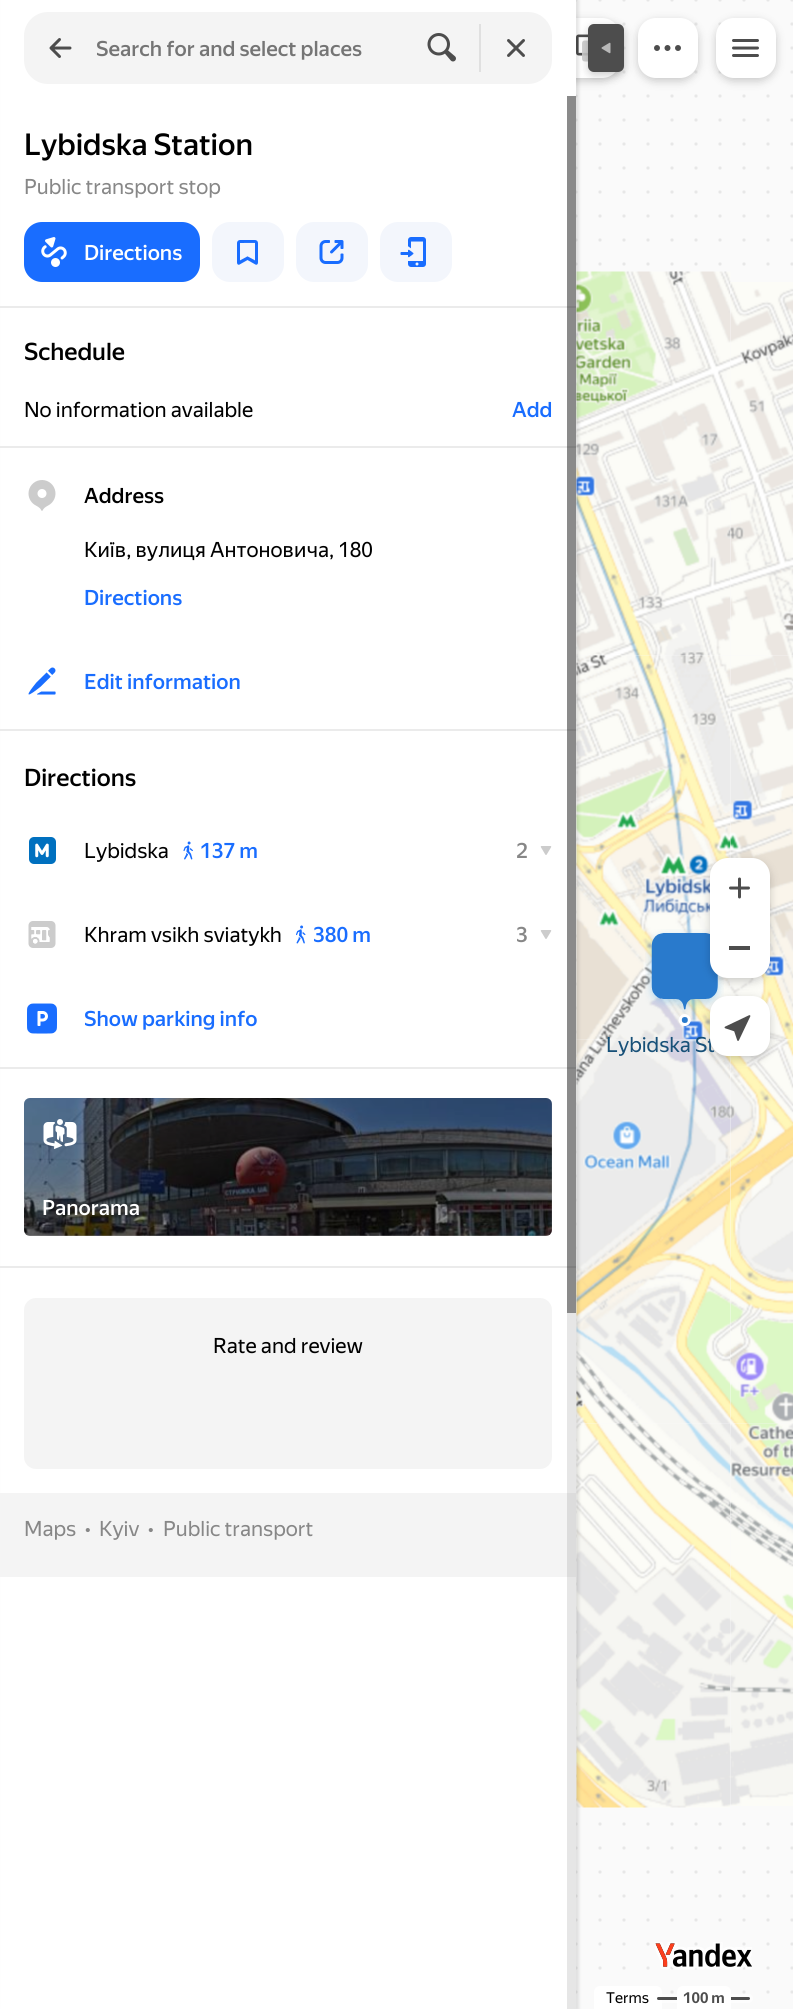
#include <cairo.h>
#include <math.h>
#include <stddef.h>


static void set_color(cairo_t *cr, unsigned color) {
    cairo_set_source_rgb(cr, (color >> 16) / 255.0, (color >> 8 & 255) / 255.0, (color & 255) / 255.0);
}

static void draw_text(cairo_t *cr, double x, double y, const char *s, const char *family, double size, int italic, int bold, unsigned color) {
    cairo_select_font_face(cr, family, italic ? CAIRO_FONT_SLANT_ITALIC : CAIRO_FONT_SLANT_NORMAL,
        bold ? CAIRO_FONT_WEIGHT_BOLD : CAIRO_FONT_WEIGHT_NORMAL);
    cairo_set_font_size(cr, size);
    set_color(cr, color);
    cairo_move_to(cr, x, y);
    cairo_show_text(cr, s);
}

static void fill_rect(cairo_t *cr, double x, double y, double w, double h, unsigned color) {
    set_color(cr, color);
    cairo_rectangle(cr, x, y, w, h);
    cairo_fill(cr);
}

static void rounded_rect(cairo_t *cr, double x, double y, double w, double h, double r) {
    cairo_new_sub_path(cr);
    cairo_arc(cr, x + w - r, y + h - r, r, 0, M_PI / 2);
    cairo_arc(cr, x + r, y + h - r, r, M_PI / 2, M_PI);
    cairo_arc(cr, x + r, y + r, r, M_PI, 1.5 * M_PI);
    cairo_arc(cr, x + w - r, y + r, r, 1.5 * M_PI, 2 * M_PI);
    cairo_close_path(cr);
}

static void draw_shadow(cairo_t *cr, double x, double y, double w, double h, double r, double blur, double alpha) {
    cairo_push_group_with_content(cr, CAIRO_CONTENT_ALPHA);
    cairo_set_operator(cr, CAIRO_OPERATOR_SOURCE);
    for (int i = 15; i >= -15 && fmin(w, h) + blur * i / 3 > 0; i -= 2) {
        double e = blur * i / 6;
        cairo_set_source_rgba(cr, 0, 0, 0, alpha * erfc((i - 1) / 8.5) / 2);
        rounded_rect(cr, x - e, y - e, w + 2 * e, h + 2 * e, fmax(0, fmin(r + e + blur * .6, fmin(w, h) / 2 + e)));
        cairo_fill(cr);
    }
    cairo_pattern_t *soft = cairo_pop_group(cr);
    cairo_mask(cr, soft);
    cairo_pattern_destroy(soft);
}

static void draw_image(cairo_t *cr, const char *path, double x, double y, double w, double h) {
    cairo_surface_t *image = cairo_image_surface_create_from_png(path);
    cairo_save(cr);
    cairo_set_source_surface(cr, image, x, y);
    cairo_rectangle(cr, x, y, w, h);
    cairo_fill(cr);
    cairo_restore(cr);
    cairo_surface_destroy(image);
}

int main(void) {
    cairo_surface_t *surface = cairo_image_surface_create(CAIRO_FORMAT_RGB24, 793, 2009);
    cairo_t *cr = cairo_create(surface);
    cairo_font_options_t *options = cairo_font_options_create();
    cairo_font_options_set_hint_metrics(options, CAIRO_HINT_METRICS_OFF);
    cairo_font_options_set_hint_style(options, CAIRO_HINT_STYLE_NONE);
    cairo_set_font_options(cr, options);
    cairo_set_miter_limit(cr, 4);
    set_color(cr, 0xFFFFFF);
    cairo_paint(cr);
    draw_image(cr, "assets/img1.png", 576, 0, 217, 2009);
    set_color(cr, 0x000000);
    draw_shadow(cr, 500, 21, 120, 60, 18, 4.5, 0.2);
    set_color(cr, 0xFFFFFF);
    cairo_new_path(cr);
    cairo_move_to(cr, 560, 18);
    cairo_line_to(cr, 602, 18);
    cairo_curve_to(cr, 612, 18, 620, 26, 620, 36);
    cairo_line_to(cr, 620, 60);
    cairo_curve_to(cr, 620, 70, 612, 78, 602, 78);
    cairo_line_to(cr, 560, 78);
    cairo_close_path(cr);
    cairo_fill(cr);
    draw_image(cr, "assets/img5.png", 576, 34, 12, 28);
    draw_image(cr, "assets/img26.png", 576, 271, 155, 385);
    draw_image(cr, "assets/img27.png", 730, 282, 63, 374);
    draw_image(cr, "assets/img28.png", 576, 655, 155, 385);
    draw_image(cr, "assets/img29.png", 730, 655, 63, 385);
    draw_image(cr, "assets/img30.png", 576, 1039, 155, 385);
    draw_image(cr, "assets/img31.png", 730, 1039, 63, 385);
    draw_image(cr, "assets/img32.png", 576, 1423, 155, 385);
    set_color(cr, 0x000000);
    draw_shadow(cr, 3, 0, 576, 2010, 0, 1.5, 0.1);
    draw_shadow(cr, 638, 21, 60, 60, 18, 4.5, 0.2);
    set_color(cr, 0xFFFFFF);
    rounded_rect(cr, 638, 18, 60, 60, 18);
    cairo_fill(cr);
    set_color(cr, 0x000000);
    draw_shadow(cr, 588, 27, 36, 48, 6, 4.5, 0.2);
    fill_rect(cr, 1, 0, 575, 2009, 0xFFFFFF);
    set_color(cr, 0xF4F4F4);
    rounded_rect(cr, 24, 12, 528, 72, 24);
    cairo_fill(cr);
    draw_image(cr, "assets/img2.png", 49, 38, 23, 20);
    draw_text(cr, 96, 56, "Search for and select places", "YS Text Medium", 21, 0, 0, 0x757575);
    draw_image(cr, "assets/img3.png", 427, 33, 29, 29);
    fill_rect(cr, 479, 24, 2, 48, 0xE0E0E0);
    draw_image(cr, "assets/img4.png", 507, 39, 18, 18);
    draw_image(cr, "assets/img6.png", 654, 45, 27, 6);
    set_color(cr, 0x000000);
    draw_shadow(cr, 716, 21, 60, 60, 18, 4.5, 0.2);
    set_color(cr, 0xFFFFFF);
    rounded_rect(cr, 716, 18, 60, 60, 18);
    cairo_fill(cr);
    draw_image(cr, "assets/img7.png", 732, 39, 27, 18);
    draw_image(cr, "assets/img34.png", 645, 929, 79, 97);
    set_color(cr, 0x000000);
    draw_shadow(cr, 710, 861, 60, 120, 18, 4.5, 0.2);
    set_color(cr, 0xFFFFFF);
    cairo_new_path(cr);
    cairo_move_to(cr, 728, 858);
    cairo_line_to(cr, 752, 858);
    cairo_curve_to(cr, 762, 858, 770, 866, 770, 876);
    cairo_line_to(cr, 770, 918);
    cairo_line_to(cr, 710, 918);
    cairo_line_to(cr, 710, 876);
    cairo_curve_to(cr, 710, 866, 718, 858, 728, 858);
    cairo_close_path(cr);
    cairo_fill(cr);
    draw_image(cr, "assets/img8.png", 729, 877, 21, 22);
    cairo_new_path(cr);
    cairo_move_to(cr, 710, 918);
    cairo_line_to(cr, 770, 918);
    cairo_line_to(cr, 770, 960);
    cairo_curve_to(cr, 770, 970, 762, 978, 752, 978);
    cairo_line_to(cr, 728, 978);
    cairo_curve_to(cr, 718, 978, 710, 970, 710, 960);
    cairo_close_path(cr);
    cairo_fill(cr);
    fill_rect(cr, 729, 946, 21, 4, 0x4D4D4D);
    set_color(cr, 0x000000);
    draw_shadow(cr, 710, 999, 60, 60, 18, 4.5, 0.2);
    draw_text(cr, 606, 1052, "Lybidska St", "YS Text", 21, 0, 0, 0x175078);
    set_color(cr, 0xFFFFFF);
    rounded_rect(cr, 710, 996, 60, 60, 18);
    cairo_fill(cr);
    draw_image(cr, "assets/img9.png", 724, 1015, 27, 26);
    set_color(cr, 0x4D4D4D);
    rounded_rect(cr, 588, 24, 36, 48, 6);
    cairo_fill(cr);
    draw_image(cr, "assets/img10.png", 601, 42, 10, 12);
    draw_text(cr, 24, 155, "Lybidska Station", "YS Text Medium", 30, 0, 0, 0x000000);
    draw_text(cr, 24, 194, "Public transport stop", "YS Text", 21, 0, 0, 0x878787);
    set_color(cr, 0x196DFF);
    rounded_rect(cr, 24, 222, 176, 60, 18);
    cairo_fill(cr);
    draw_image(cr, "assets/img11.png", 41, 237, 26, 30);
    draw_text(cr, 84, 260, "Directions", "YS Text Medium", 21, 0, 0, 0xFFFFFF);
    set_color(cr, 0xF3F6FC);
    rounded_rect(cr, 212, 222, 72, 60, 18);
    cairo_fill(cr);
    draw_image(cr, "assets/img12.png", 237, 240, 21, 25);
    rounded_rect(cr, 296, 222, 72, 60, 18);
    cairo_fill(cr);
    draw_image(cr, "assets/img13.png", 319, 240, 25, 24);
    rounded_rect(cr, 380, 222, 72, 60, 18);
    cairo_fill(cr);
    draw_image(cr, "assets/img14.png", 400, 237, 26, 30);
    fill_rect(cr, 0, 306, 576, 2, 0xEBEBEB);
    draw_text(cr, 24, 360, "Schedule", "YS Text Medium", 24, 0, 0, 0x000000);
    draw_text(cr, 24, 417, "No information available", "YS Text", 21, 0, 0, 0x000000);
    draw_text(cr, 512, 417, "Add", "YS Text Medium", 21, 0, 0, 0x196DFF);
    fill_rect(cr, 0, 446, 576, 2, 0xEBEBEB);
    draw_image(cr, "assets/img15.png", 28, 480, 28, 31);
    draw_text(cr, 84, 503, "Address", "YS Text Medium", 21, 0, 0, 0x000000);
    draw_text(cr, 84, 557, "Київ, вулиця Антоновича, 180", "YS Text", 21, 0, 0, 0x000000);
    draw_text(cr, 84, 605, "Directions", "YS Text Medium", 21, 0, 0, 0x196DFF);
    draw_image(cr, "assets/img16.png", 28, 667, 28, 28);
    draw_text(cr, 84, 689, "Edit information", "YS Text Medium", 21, 0, 0, 0x196DFF);
    fill_rect(cr, 0, 729, 576, 2, 0xEBEBEB);
    draw_text(cr, 24, 786, "Directions", "YS Text Medium", 24, 0, 0, 0x000000);
    draw_image(cr, "assets/img17.png", 29, 837, 27, 27);
    draw_text(cr, 84, 858, "Lybidska", "YS Text", 21, 0, 0, 0x000000);
    draw_image(cr, "assets/img18.png", 183, 841, 10, 19);
    draw_text(cr, 200, 858, "137 m", "YS Text Medium", 21, 0, 0, 0x196DFF);
    draw_text(cr, 516, 858, "2", "YS Text Medium", 21, 0, 0, 0x878787);
    draw_image(cr, "assets/img19.png", 540, 846, 12, 9);
    draw_image(cr, "assets/img20.png", 28, 921, 28, 27);
    draw_text(cr, 84, 942, "Khram vsikh sviatykh", "YS Text", 21, 0, 0, 0x000000);
    draw_image(cr, "assets/img21.png", 296, 925, 10, 19);
    draw_text(cr, 313, 942, "380 m", "YS Text Medium", 21, 0, 0, 0x196DFF);
    draw_text(cr, 516, 942, "3", "YS Text Medium", 21, 0, 0, 0x878787);
    draw_image(cr, "assets/img19.png", 540, 930, 12, 9);
    draw_image(cr, "assets/img22.png", 27, 1003, 30, 31);
    draw_text(cr, 84, 1026, "Show parking info", "YS Text Medium", 21, 0, 0, 0x196DFF);
    fill_rect(cr, 0, 1067, 576, 2, 0xEBEBEB);
    draw_image(cr, "assets/img23.png", 24, 1098, 528, 138);
    cairo_set_source_rgba(cr, 0, 0, 0, 0.3);
    rounded_rect(cr, 24, 1098, 528, 138, 6);
    cairo_fill(cr);
    draw_image(cr, "assets/img24.png", 43, 1119, 34, 30);
    draw_text(cr, 42, 1215, "Panorama", "YS Text Medium", 21, 0, 0, 0xFFFFFF);
    fill_rect(cr, 0, 1266, 576, 2, 0xEBEBEB);
    set_color(cr, 0xF4F4F4);
    rounded_rect(cr, 24, 1298, 528, 171, 12);
    cairo_fill(cr);
    draw_text(cr, 213, 1353, "Rate and review", "YS Text", 21, 0, 0, 0x000000);
    fill_rect(cr, 0, 1493, 576, 84, 0xF4F4F4);
    draw_text(cr, 24, 1536, "Maps", "YS Text", 21, 0, 0, 0x878787);
    draw_text(cr, 85, 1536, "•", "YS Text", 21, 0, 0, 0x878787);
    draw_text(cr, 99, 1536, "Kyiv", "YS Text", 21, 0, 0, 0x878787);
    draw_text(cr, 148, 1536, "•", "YS Text", 21, 0, 0, 0x878787);
    draw_text(cr, 163, 1536, "Public transport", "YS Text", 21, 0, 0, 0x878787);
    cairo_set_source_rgba(cr, 0, 0, 0, 0.1);
    cairo_rectangle(cr, 567, 96, 9, 1913);
    cairo_fill(cr);
    cairo_set_source_rgba(cr, 0, 0, 0, 0.4);
    cairo_rectangle(cr, 567, 96, 9, 1217);
    cairo_fill(cr);
    draw_image(cr, "assets/img25.png", 655, 1942, 97, 28);
    set_color(cr, 0xFFFFFF);
    cairo_new_path(cr);
    cairo_move_to(cr, 600, 1986);
    cairo_line_to(cr, 656, 1986);
    cairo_curve_to(cr, 659.5, 1986, 662, 1988.5, 662, 1992);
    cairo_line_to(cr, 662, 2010);
    cairo_line_to(cr, 594, 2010);
    cairo_line_to(cr, 594, 1992);
    cairo_curve_to(cr, 594, 1988.5, 596.5, 1986, 600, 1986);
    cairo_close_path(cr);
    cairo_fill(cr);
    draw_text(cr, 606, 2003, "Terms", "YS Text", 15, 0, 0, 0x000000);
    cairo_set_source_rgba(cr, 1, 1, 1, 0.6);
    rounded_rect(cr, 654, 1994, 99, 9, 4.5);
    cairo_fill(cr);
    set_color(cr, 0x4D4D4D);
    rounded_rect(cr, 657, 1997, 93, 3, 1.5);
    cairo_fill(cr);
    set_color(cr, 0xFFFFFF);
    cairo_new_path(cr);
    cairo_move_to(cr, 683, 1986);
    cairo_line_to(cr, 725, 1986);
    cairo_curve_to(cr, 728.5, 1986, 731, 1988.5, 731, 1992);
    cairo_line_to(cr, 731, 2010);
    cairo_line_to(cr, 677, 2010);
    cairo_line_to(cr, 677, 1992);
    cairo_curve_to(cr, 677, 1988.5, 679.5, 1986, 683, 1986);
    cairo_close_path(cr);
    cairo_fill(cr);
    draw_text(cr, 683, 2003, "100 m", "YS Text", 15, 0, 1, 0x4D4D4D);
    draw_image(cr, "assets/img33.png", 730, 1423, 63, 383);
    cairo_surface_write_to_png(surface, "output.png");
    cairo_font_options_destroy(options);
    cairo_destroy(cr);
    cairo_surface_destroy(surface);
    return 0;
}
